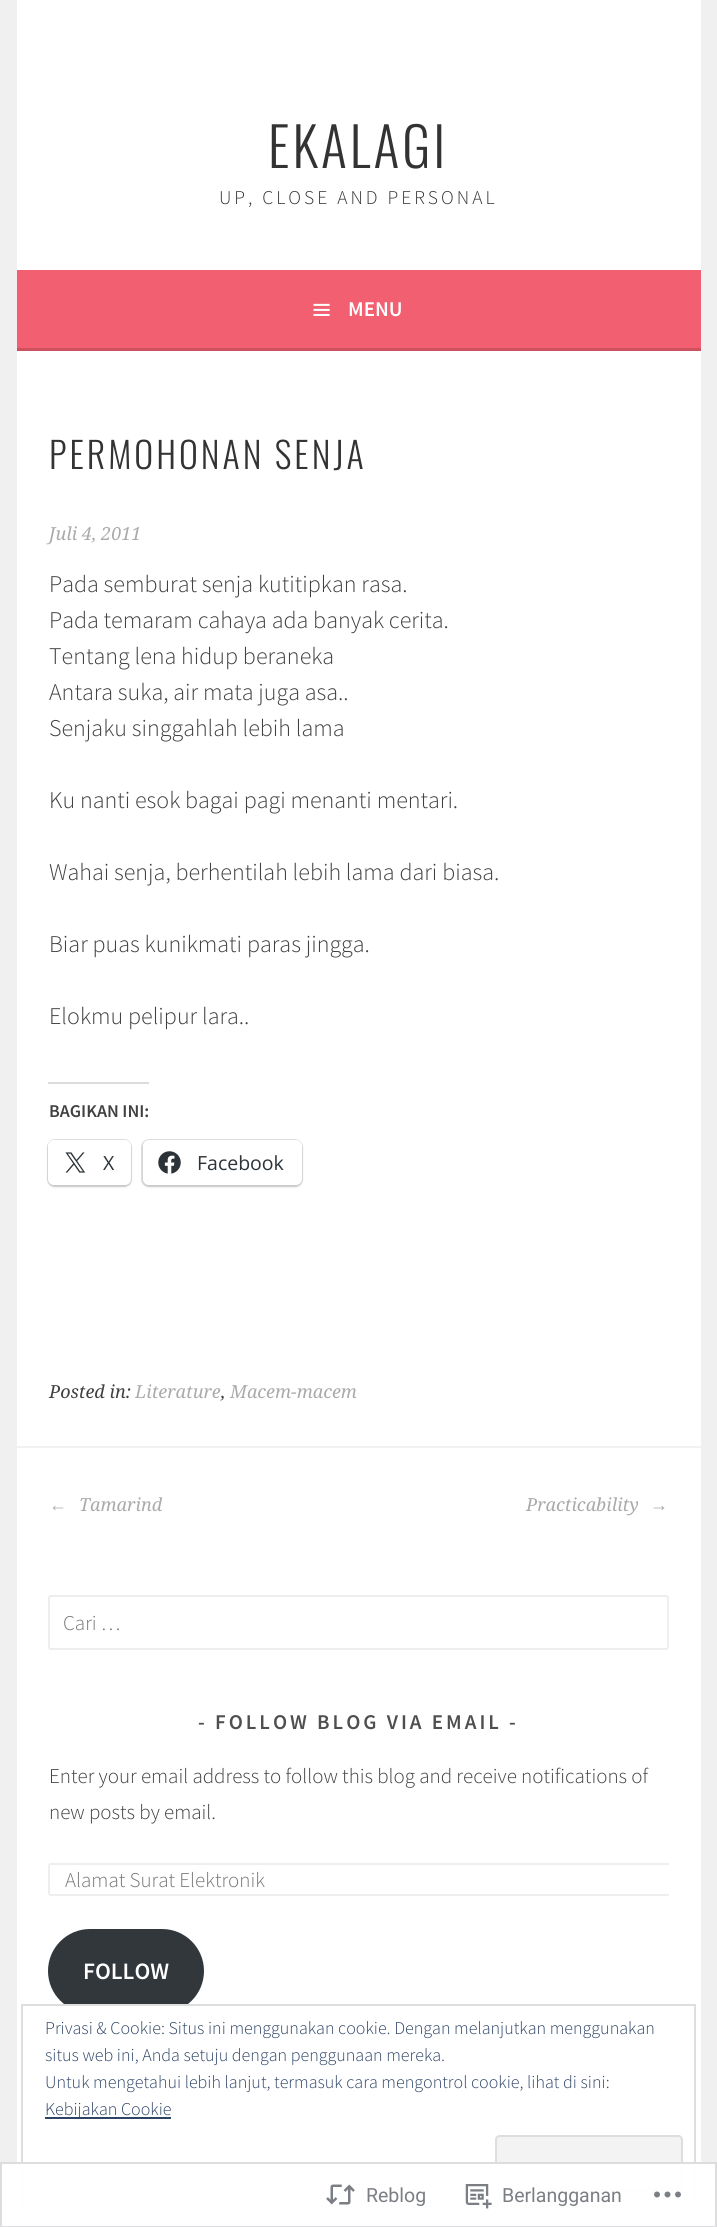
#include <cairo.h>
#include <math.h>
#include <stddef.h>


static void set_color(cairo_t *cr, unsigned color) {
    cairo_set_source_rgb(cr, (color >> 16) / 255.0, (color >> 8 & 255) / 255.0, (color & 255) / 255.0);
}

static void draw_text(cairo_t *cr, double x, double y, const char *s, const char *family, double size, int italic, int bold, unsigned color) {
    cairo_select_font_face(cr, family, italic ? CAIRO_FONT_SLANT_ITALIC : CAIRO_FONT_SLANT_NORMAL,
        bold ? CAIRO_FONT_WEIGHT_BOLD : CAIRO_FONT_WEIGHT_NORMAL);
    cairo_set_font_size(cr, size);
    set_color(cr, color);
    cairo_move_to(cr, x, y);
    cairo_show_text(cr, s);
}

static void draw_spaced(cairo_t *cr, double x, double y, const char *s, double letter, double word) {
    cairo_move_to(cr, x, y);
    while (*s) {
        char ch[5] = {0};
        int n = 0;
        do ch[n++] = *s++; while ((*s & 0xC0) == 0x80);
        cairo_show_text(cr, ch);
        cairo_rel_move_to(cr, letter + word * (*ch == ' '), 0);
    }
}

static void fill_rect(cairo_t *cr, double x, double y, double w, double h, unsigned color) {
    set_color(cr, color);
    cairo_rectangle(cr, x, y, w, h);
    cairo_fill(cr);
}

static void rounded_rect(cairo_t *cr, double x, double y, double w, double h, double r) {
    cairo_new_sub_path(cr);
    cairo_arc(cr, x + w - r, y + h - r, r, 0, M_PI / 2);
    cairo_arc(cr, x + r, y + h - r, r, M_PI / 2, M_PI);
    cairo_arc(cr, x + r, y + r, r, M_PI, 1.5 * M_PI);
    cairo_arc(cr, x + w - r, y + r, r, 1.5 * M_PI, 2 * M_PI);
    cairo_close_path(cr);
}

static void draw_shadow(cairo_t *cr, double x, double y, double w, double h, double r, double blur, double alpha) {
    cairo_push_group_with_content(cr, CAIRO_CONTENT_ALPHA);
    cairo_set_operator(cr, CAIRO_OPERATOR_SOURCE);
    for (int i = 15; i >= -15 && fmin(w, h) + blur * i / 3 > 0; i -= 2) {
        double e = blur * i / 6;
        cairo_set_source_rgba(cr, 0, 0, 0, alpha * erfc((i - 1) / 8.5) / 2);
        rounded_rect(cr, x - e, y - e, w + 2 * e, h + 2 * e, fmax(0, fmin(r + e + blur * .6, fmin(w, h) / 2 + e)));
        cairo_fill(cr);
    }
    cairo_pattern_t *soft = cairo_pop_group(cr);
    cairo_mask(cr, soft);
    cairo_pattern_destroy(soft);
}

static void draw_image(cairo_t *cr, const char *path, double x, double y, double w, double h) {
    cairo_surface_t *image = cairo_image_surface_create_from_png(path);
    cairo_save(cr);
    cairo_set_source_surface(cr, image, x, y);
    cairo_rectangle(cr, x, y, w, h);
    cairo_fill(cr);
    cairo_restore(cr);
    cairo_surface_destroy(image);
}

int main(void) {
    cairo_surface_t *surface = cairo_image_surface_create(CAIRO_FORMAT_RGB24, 717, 2227);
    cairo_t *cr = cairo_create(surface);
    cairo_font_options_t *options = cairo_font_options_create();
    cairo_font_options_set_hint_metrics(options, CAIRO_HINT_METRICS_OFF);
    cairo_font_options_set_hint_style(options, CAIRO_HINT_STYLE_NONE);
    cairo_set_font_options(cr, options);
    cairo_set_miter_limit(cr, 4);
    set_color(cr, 0xF0F0F0);
    cairo_paint(cr);
    fill_rect(cr, 17, 0, 684, 270, 0xFFFFFF);
    cairo_select_font_face(cr, "Oswald Light", CAIRO_FONT_SLANT_NORMAL, CAIRO_FONT_WEIGHT_NORMAL);
    cairo_set_font_size(cr, 54);
    set_color(cr, 0x333333);
    draw_spaced(cr, 268, 168, "EKALAGI", 3, 0);
    cairo_select_font_face(cr, "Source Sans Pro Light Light", CAIRO_FONT_SLANT_NORMAL, CAIRO_FONT_WEIGHT_NORMAL);
    cairo_set_font_size(cr, 19.5);
    draw_spaced(cr, 219, 204, "UP, CLOSE AND PERSONAL", 3, 0);
    fill_rect(cr, 17, 270, 684, 78, 0xF25F70);
    fill_rect(cr, 17, 348, 684, 3, 0xCE515F);
    draw_image(cr, "assets/img1.png", 313, 303, 17, 13);
    draw_text(cr, 348, 316, "MENU", "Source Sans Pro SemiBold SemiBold", 21, 0, 0, 0xFFFFFF);
    fill_rect(cr, 17, 351, 684, 1876, 0xFFFFFF);
    cairo_select_font_face(cr, "Oswald Light", CAIRO_FONT_SLANT_NORMAL, CAIRO_FONT_WEIGHT_NORMAL);
    cairo_set_font_size(cr, 36);
    set_color(cr, 0x333333);
    draw_spaced(cr, 49, 469, "PERMOHONAN SENJA", 3, 0);
    draw_text(cr, 49, 540, "Juli 4, 2011", "Droid Serif", 18, 1, 0, 0xAAAAAA);
    draw_text(cr, 49, 592, "Pada semburat senja kutitipkan rasa.", "Source Sans Pro Light Light", 24, 0, 0, 0x404040);
    draw_text(cr, 49, 628, "Pada temaram cahaya ada banyak cerita.", "Source Sans Pro Light Light", 24, 0, 0, 0x404040);
    draw_text(cr, 49, 664, "Tentang lena hidup beraneka", "Source Sans Pro Light Light", 24, 0, 0, 0x404040);
    draw_text(cr, 49, 700, "Antara suka, air mata juga asa..", "Source Sans Pro Light Light", 24, 0, 0, 0x404040);
    draw_text(cr, 49, 736, "Senjaku singgahlah lebih lama", "Source Sans Pro Light Light", 24, 0, 0, 0x404040);
    draw_text(cr, 49, 808, "Ku nanti esok bagai pagi menanti mentari.", "Source Sans Pro Light Light", 24, 0, 0, 0x404040);
    draw_text(cr, 49, 880, "Wahai senja, berhentilah lebih lama dari biasa.", "Source Sans Pro Light Light", 24, 0, 0, 0x404040);
    draw_text(cr, 49, 952, "Biar puas kunikmati paras jingga.", "Source Sans Pro Light Light", 24, 0, 0, 0x404040);
    draw_text(cr, 49, 1024, "Elokmu pelipur lara..", "Source Sans Pro Light Light", 24, 0, 0, 0x404040);
    fill_rect(cr, 48, 1082, 101, 2, 0xDCDCDE);
    draw_text(cr, 49, 1117, "BAGIKAN INI:", "Source Sans Pro SemiBold SemiBold", 18, 0, 0, 0x404040);
    rounded_rect(cr, 48, 1140, 83, 46, 7);
    set_color(cr, 0xE0E0E0);
    cairo_stroke(cr);
    set_color(cr, 0x000000);
    draw_shadow(cr, 48, 1142, 83, 45, 6, 1.5, 0.12);
    set_color(cr, 0xFFFFFF);
    rounded_rect(cr, 48, 1140, 83, 45, 6);
    cairo_fill(cr);
    draw_image(cr, "assets/img2.png", 65, 1152, 21, 21);
    draw_text(cr, 103, 1170, "X", "Open Sans", 19.5, 0, 0, 0x2C3338);
    rounded_rect(cr, 142, 1140, 160, 46, 7);
    set_color(cr, 0xE0E0E0);
    cairo_stroke(cr);
    set_color(cr, 0x000000);
    draw_shadow(cr, 143, 1142, 159, 45, 6, 1.5, 0.12);
    set_color(cr, 0xFFFFFF);
    rounded_rect(cr, 143, 1140, 159, 45, 6);
    cairo_fill(cr);
    draw_image(cr, "assets/img3.png", 158, 1151, 23, 23);
    draw_text(cr, 197, 1170, "Facebook", "Open Sans", 19.5, 0, 0, 0x2C3338);
    draw_text(cr, 49, 1398, "Posted in:", "Droid Serif", 18, 1, 0, 0x404040);
    draw_text(cr, 135, 1398, "Literature", "Droid Serif", 18, 1, 0, 0xAAAAAA);
    draw_text(cr, 221, 1398, ",", "Droid Serif", 18, 1, 0, 0x404040);
    draw_text(cr, 230, 1398, "Macem-macem", "Droid Serif", 18, 1, 0, 0xAAAAAA);
    fill_rect(cr, 17, 1446, 684, 2, 0xF2F2F2);
    draw_text(cr, 49, 1511, "←", "Liberation Serif", 18, 1, 0, 0xAAAAAA);
    draw_text(cr, 79, 1511, "Tamarind", "Droid Serif", 18, 1, 0, 0xAAAAAA);
    draw_text(cr, 526, 1511, "Practicability", "Droid Serif", 18, 1, 0, 0xAAAAAA);
    draw_text(cr, 650, 1511, "→", "Liberation Serif", 18, 1, 0, 0xAAAAAA);
    rounded_rect(cr, 49, 1596, 619, 53, 2);
    set_color(cr, 0xEEEEEE);
    cairo_stroke(cr);
    draw_text(cr, 63, 1630, "Cari …", "Source Sans Pro Light Light", 21, 0, 0, 0x757575);
    cairo_select_font_face(cr, "Source Sans Pro SemiBold SemiBold", CAIRO_FONT_SLANT_NORMAL, CAIRO_FONT_WEIGHT_NORMAL);
    set_color(cr, 0x4F4F4F);
    draw_spaced(cr, 198, 1729, "- FOLLOW BLOG VIA EMAIL -", 3, 0);
    draw_text(cr, 49, 1783, "Enter your email address to follow this blog and receive notifications of", "Source Sans Pro Light Light", 21, 0, 0, 0x404040);
    draw_text(cr, 49, 1819, "new posts by email.", "Source Sans Pro Light Light", 21, 0, 0, 0x404040);
    cairo_save(cr);
    cairo_rectangle(cr, 48, 1595, 621, 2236);
    cairo_clip(cr);
    rounded_rect(cr, 49, 1864, 621, 31, 2);
    set_color(cr, 0xEEEEEE);
    cairo_stroke(cr);
    cairo_restore(cr);
    draw_text(cr, 65, 1887, "Alamat Surat Elektronik", "Source Sans Pro Light Light", 21, 0, 0, 0x757575);
    set_color(cr, 0x32373C);
    rounded_rect(cr, 48, 1929, 156, 84, 42);
    cairo_fill(cr);
    draw_text(cr, 83, 1979, "FOLLOW", "Source Sans Pro SemiBold SemiBold", 23.5, 0, 0, 0xFFFFFF);
    fill_rect(cr, 67, 2006, 118, 7, 0xFFFFFF);
    cairo_rectangle(cr, 22, 2005, 673, 201);
    set_color(cr, 0xDEDEDE);
    cairo_stroke(cr);
    draw_text(cr, 45, 2034, "Privasi & Cookie: Situs ini menggunakan cookie. Dengan melanjutkan menggunakan", "Source Sans Pro Light Light", 18, 0, 0, 0x2E4467);
    draw_text(cr, 45, 2061, "situs web ini, Anda setuju dengan penggunaan mereka.", "Source Sans Pro Light Light", 18, 0, 0, 0x2E4467);
    draw_text(cr, 45, 2088, "Untuk mengetahui lebih lanjut, termasuk cara mengontrol cookie, lihat di sini:", "Source Sans Pro Light Light", 18, 0, 0, 0x2E4467);
    fill_rect(cr, 45, 2117, 126, 2, 0x2E4467);
    draw_text(cr, 45, 2115, "Kebijakan Cookie", "Source Sans Pro Light Light", 18, 0, 0, 0x2E4467);
    set_color(cr, 0xF3F3F3);
    rounded_rect(cr, 495, 2135, 188, 58, 5);
    cairo_fill(cr);
    set_color(cr, 0xDBDBDB);
    cairo_new_path(cr);
    cairo_move_to(cr, 497, 2187);
    cairo_line_to(cr, 497, 2189);
    cairo_curve_to(cr, 497, 2191, 498, 2192, 500, 2192);
    cairo_line_to(cr, 678, 2192);
    cairo_curve_to(cr, 680, 2192, 681, 2191, 681, 2189);
    cairo_line_to(cr, 681, 2186);
    cairo_curve_to(cr, 681, 2187, 680, 2188, 678, 2188);
    cairo_line_to(cr, 500, 2188);
    cairo_close_path(cr);
    cairo_fill(cr);
    rounded_rect(cr, 496, 2136, 186, 56, 4);
    set_color(cr, 0xDEDEDE);
    cairo_stroke(cr);
    cairo_set_source_rgba(cr, 1, 1, 1, 0.98);
    cairo_rectangle(cr, 0, 2162, 717, 65);
    cairo_fill(cr);
    cairo_rectangle(cr, 1, 2163, 715, 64);
    cairo_set_source_rgba(cr, 0.863, 0.863, 0.871, 0.98);
    cairo_stroke(cr);
    draw_image(cr, "assets/img4.png", 326, 2184, 29, 21);
    draw_text(cr, 366, 2202, "Reblog", "Roboto", 19.5, 0, 0, 0x7B7F84);
    draw_image(cr, "assets/img5.png", 465, 2184, 27, 25);
    draw_text(cr, 502, 2202, "Berlangganan", "Roboto", 19.5, 0, 0, 0x7B7F84);
    draw_image(cr, "assets/img6.png", 654, 2191, 27, 7);
    cairo_surface_write_to_png(surface, "output.png");
    cairo_font_options_destroy(options);
    cairo_destroy(cr);
    cairo_surface_destroy(surface);
    return 0;
}
